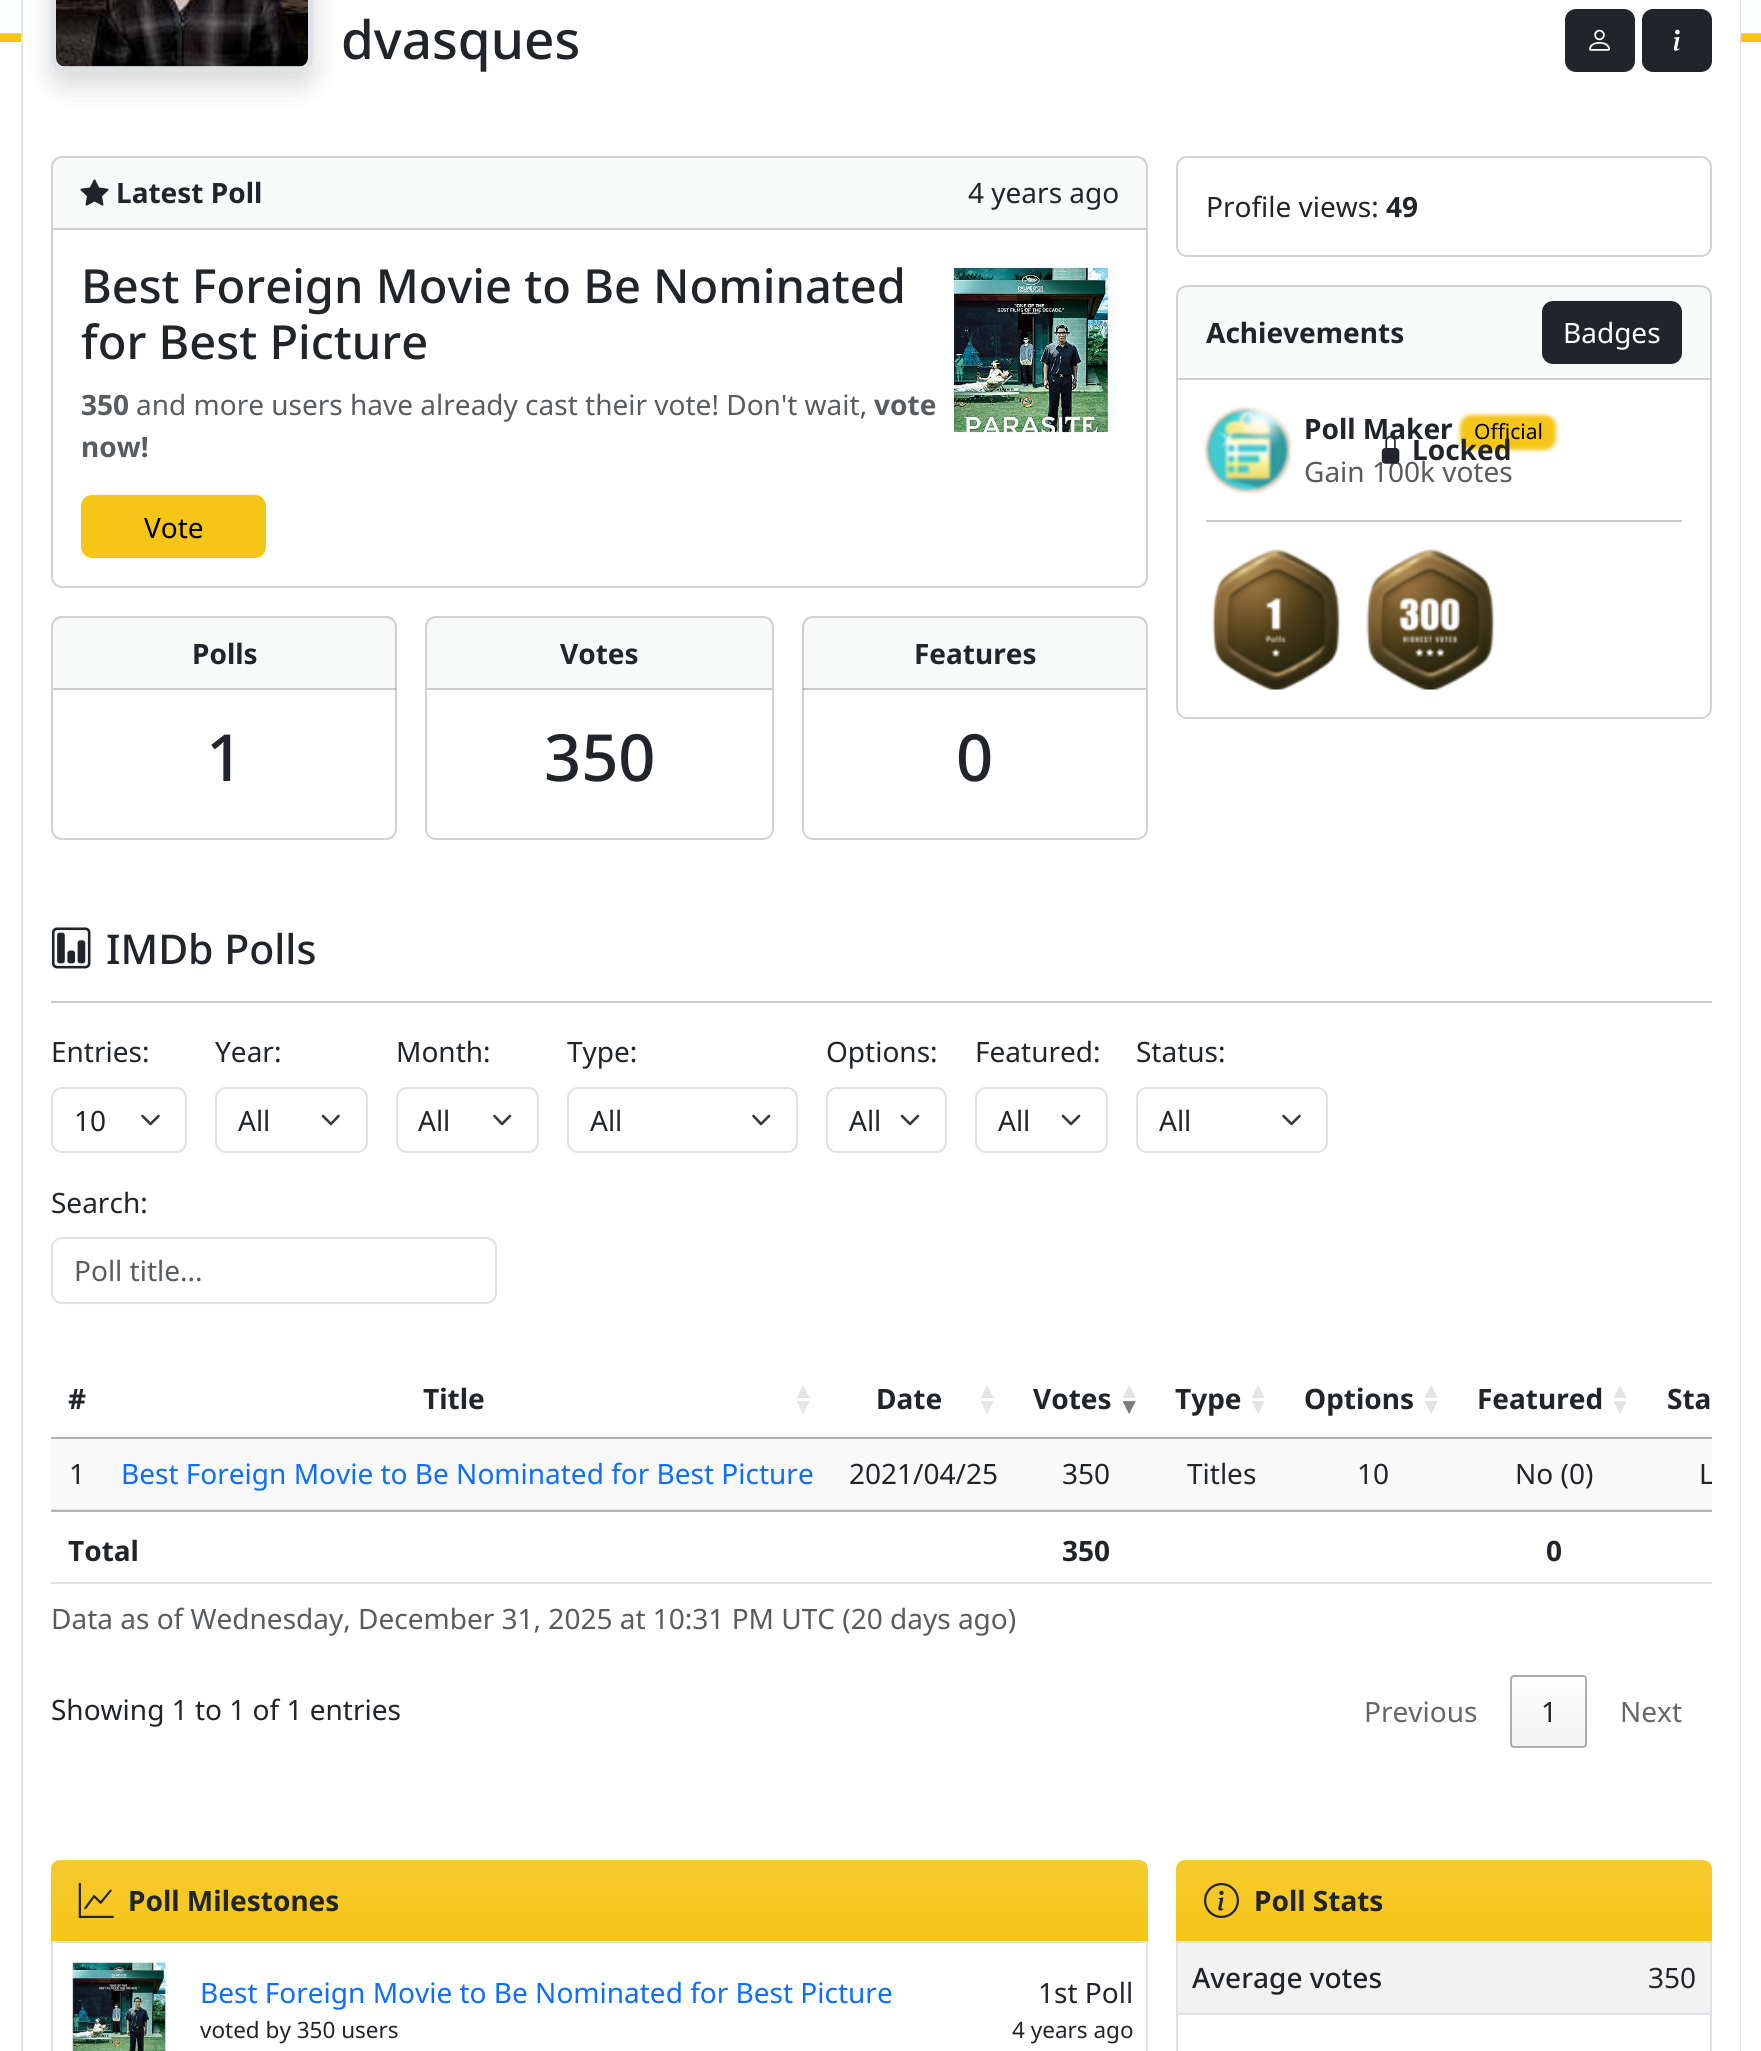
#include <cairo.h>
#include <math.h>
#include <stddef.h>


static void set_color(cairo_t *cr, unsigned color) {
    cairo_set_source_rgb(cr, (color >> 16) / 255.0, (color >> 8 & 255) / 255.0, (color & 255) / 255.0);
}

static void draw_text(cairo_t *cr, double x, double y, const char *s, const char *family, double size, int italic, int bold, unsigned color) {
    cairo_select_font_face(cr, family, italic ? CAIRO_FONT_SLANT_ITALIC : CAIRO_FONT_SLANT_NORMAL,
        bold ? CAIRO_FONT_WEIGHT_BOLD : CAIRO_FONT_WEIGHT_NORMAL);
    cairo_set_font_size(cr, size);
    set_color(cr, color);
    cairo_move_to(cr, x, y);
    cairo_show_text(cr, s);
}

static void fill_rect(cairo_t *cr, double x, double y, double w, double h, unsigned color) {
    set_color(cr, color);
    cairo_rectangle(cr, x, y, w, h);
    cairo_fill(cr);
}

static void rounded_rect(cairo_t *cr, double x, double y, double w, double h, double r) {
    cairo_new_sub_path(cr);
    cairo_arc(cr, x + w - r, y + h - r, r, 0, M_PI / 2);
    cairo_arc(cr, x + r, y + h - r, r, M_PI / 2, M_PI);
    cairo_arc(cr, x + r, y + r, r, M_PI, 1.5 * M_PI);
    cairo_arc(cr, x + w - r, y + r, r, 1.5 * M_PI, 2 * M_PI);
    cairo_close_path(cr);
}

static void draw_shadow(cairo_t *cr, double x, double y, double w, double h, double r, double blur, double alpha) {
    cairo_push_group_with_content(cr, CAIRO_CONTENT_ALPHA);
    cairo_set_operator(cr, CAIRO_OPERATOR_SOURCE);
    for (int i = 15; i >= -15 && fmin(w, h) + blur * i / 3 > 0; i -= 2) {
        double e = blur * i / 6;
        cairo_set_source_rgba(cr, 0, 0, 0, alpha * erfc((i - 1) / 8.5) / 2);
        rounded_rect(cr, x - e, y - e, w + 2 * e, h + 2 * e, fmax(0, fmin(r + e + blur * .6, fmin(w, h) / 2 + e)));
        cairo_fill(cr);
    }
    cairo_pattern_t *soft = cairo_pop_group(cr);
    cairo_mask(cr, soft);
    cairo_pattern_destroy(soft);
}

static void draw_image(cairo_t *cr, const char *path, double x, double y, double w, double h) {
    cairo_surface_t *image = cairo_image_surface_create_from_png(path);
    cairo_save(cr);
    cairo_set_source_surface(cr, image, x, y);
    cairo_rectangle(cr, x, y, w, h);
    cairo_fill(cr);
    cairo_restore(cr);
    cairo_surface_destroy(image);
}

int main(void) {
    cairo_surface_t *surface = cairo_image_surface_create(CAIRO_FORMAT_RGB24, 1761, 2051);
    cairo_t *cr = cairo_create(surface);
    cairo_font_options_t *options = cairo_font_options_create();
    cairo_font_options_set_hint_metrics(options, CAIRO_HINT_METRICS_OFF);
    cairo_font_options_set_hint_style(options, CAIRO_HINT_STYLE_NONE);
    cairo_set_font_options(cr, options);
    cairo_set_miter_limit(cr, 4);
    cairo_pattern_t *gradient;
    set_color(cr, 0xFFFFFF);
    cairo_paint(cr);
    fill_rect(cr, 0, 33, 1761, 9, 0xF5C518);
    draw_image(cr, "assets/img1.png", 0, 0, 1761, 34);
    fill_rect(cr, 23, 0, 1717, 42, 0xFFFFFF);
    set_color(cr, 0xDEE2E6);
    cairo_set_fill_rule(cr, CAIRO_FILL_RULE_EVEN_ODD);
    cairo_new_path(cr);
    cairo_move_to(cr, 21, -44);
    cairo_line_to(cr, 1741, -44);
    cairo_line_to(cr, 1741, 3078);
    cairo_curve_to(cr, 1741, 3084, 1737, 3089, 1731, 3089);
    cairo_line_to(cr, 32, 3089);
    cairo_curve_to(cr, 26, 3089, 21, 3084, 21, 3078);
    cairo_close_path(cr);
    cairo_move_to(cr, 23, -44);
    cairo_line_to(cr, 1740, -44);
    cairo_line_to(cr, 1740, 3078);
    cairo_curve_to(cr, 1740, 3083, 1736, 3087, 1731, 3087);
    cairo_line_to(cr, 32, 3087);
    cairo_curve_to(cr, 27, 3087, 23, 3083, 23, 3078);
    cairo_close_path(cr);
    cairo_fill(cr);
    set_color(cr, 0x000000);
    draw_shadow(cr, 51, -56, 262, 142, 14, 14, 0.15);
    set_color(cr, 0xFFFFFF);
    rounded_rect(cr, 53.5, -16.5, 257, 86, 11.5);
    cairo_fill_preserve(cr);
    set_color(cr, 0xDEE2E6);
    cairo_set_line_width(cr, 5);
    cairo_stroke(cr);
    draw_image(cr, "assets/img2.png", 56, 0, 252, 67);
    draw_text(cr, 341, 59, "dvasques", "Noto Sans Medium", 53, 0, 0, 0x212529);
    rounded_rect(cr, 1565, 9, 70, 63, 11);
    cairo_fill(cr);
    draw_image(cr, "assets/img3.png", 1589, 29, 21, 22);
    rounded_rect(cr, 1642, 9, 70, 63, 11);
    cairo_fill(cr);
    draw_image(cr, "assets/img4.png", 1673, 29, 7, 22);
    rounded_rect(cr, 52, 157, 1095, 430, 10);
    set_color(cr, 0xD2D2D2);
    cairo_set_line_width(cr, 2);
    cairo_stroke(cr);
    cairo_set_source_rgba(cr, 0.129, 0.145, 0.161, 0.03);
    cairo_rectangle(cr, 53, 158, 1093, 71);
    cairo_fill(cr);
    cairo_set_source_rgba(cr, 0, 0, 0, 0.18);
    cairo_rectangle(cr, 53, 228, 1093, 2);
    cairo_fill(cr);
    draw_image(cr, "assets/img5.png", 80, 179, 29, 27);
    draw_text(cr, 116, 203, "Latest Poll", "Noto Sans", 28, 0, 1, 0x212529);
    draw_text(cr, 968, 203, "4 years ago", "Noto Sans", 28, 0, 0, 0x212529);
    draw_text(cr, 81, 303, "Best Foreign Movie to Be Nominated", "Noto Sans Medium", 47, 0, 0, 0x212529);
    draw_text(cr, 81, 359, "for Best Picture", "Noto Sans Medium", 47, 0, 0, 0x212529);
    draw_text(cr, 81, 415, "350", "Noto Sans", 28, 0, 1, 0x595C5F);
    draw_text(cr, 136, 415, "and more users have already cast their vote! Don't wait,", "Noto Sans", 28, 0, 0, 0x595C5F);
    draw_text(cr, 874, 415, "vote", "Noto Sans", 28, 0, 1, 0x595C5F);
    draw_text(cr, 81, 457, "now!", "Noto Sans", 28, 0, 1, 0x595C5F);
    set_color(cr, 0xF5C518);
    rounded_rect(cr, 81, 495, 185, 63, 11);
    cairo_fill(cr);
    draw_text(cr, 144, 538, "Vote", "Noto Sans", 28, 0, 0, 0x000000);
    draw_image(cr, "assets/img6.png", 952, 266, 166, 167);
    rounded_rect(cr, 52, 617, 344, 222, 10);
    set_color(cr, 0xD2D2D2);
    cairo_stroke(cr);
    cairo_set_source_rgba(cr, 0.129, 0.145, 0.161, 0.03);
    cairo_rectangle(cr, 53, 618, 343, 72);
    cairo_fill(cr);
    cairo_set_source_rgba(cr, 0, 0, 0, 0.18);
    cairo_rectangle(cr, 53, 688, 343, 2);
    cairo_fill(cr);
    draw_text(cr, 192, 664, "Polls", "Noto Sans", 28, 0, 1, 0x212529);
    draw_text(cr, 206, 781, "1", "Noto Sans Medium", 65, 0, 0, 0x212529);
    rounded_rect(cr, 426, 617, 347, 222, 10);
    set_color(cr, 0xD2D2D2);
    cairo_stroke(cr);
    cairo_set_source_rgba(cr, 0.129, 0.145, 0.161, 0.03);
    cairo_rectangle(cr, 427, 618, 345, 70);
    cairo_fill(cr);
    fill_rect(cr, 427, 688, 345, 2, 0xCDCDCD);
    draw_text(cr, 560, 664, "Votes", "Noto Sans", 28, 0, 1, 0x212529);
    draw_text(cr, 544, 781, "350", "Noto Sans Medium", 65, 0, 0, 0x212529);
    rounded_rect(cr, 803, 617, 344, 222, 10);
    set_color(cr, 0xD2D2D2);
    cairo_stroke(cr);
    cairo_set_source_rgba(cr, 0.129, 0.145, 0.161, 0.03);
    cairo_rectangle(cr, 803, 618, 343, 72);
    cairo_fill(cr);
    cairo_set_source_rgba(cr, 0, 0, 0, 0.18);
    cairo_rectangle(cr, 803, 688, 343, 2);
    cairo_fill(cr);
    draw_text(cr, 914, 664, "Features", "Noto Sans", 28, 0, 1, 0x212529);
    draw_text(cr, 956, 781, "0", "Noto Sans Medium", 65, 0, 0, 0x212529);
    rounded_rect(cr, 1177, 157, 534, 99, 10);
    set_color(cr, 0xD2D2D2);
    cairo_stroke(cr);
    draw_text(cr, 1206, 217, "Profile views:", "Noto Sans", 28, 0, 0, 0x212529);
    draw_text(cr, 1386, 217, "49", "Noto Sans", 28, 0, 1, 0x212529);
    rounded_rect(cr, 1177, 286, 534, 432, 10);
    set_color(cr, 0xD2D2D2);
    cairo_stroke(cr);
    cairo_set_source_rgba(cr, 0.129, 0.145, 0.161, 0.03);
    cairo_rectangle(cr, 1178, 287, 532, 91);
    cairo_fill(cr);
    fill_rect(cr, 1178, 378, 532, 2, 0xCDCDCD);
    draw_text(cr, 1206, 343, "Achievements", "Noto Sans", 28, 0, 1, 0x212529);
    rounded_rect(cr, 1542, 301, 140, 63, 11);
    cairo_fill(cr);
    draw_text(cr, 1563, 343, "Badges", "Noto Sans", 28, 0, 0, 0xFFFFFF);
    draw_image(cr, "assets/img7.png", 1204, 406, 88, 88);
    draw_text(cr, 1304, 439, "Poll Maker", "Noto Sans", 28, 0, 1, 0x212529);
    set_color(cr, 0xF5C518);
    draw_shadow(cr, 1460, 415, 96, 35, 11, 2, 1);
    draw_text(cr, 1474, 439, "Official", "Noto Sans", 21, 0, 0, 0x000000);
    draw_text(cr, 1304, 482, "Gain 100k votes", "Noto Sans", 28, 0, 0, 0x595C5F);
    draw_image(cr, "assets/img8.png", 1381, 435, 19, 29);
    draw_text(cr, 1412, 460, "Locked", "Noto Sans", 28, 0, 1, 0x212529);
    fill_rect(cr, 1206, 520, 476, 2, 0xC8C9CA);
    draw_image(cr, "assets/img9.png", 1212, 549, 129, 141);
    draw_image(cr, "assets/img10.png", 1366, 549, 129, 141);
    draw_image(cr, "assets/img11.png", 51, 927, 40, 42);
    draw_text(cr, 106, 964, "IMDb Polls", "Noto Sans Medium", 41, 0, 0, 0x212529);
    fill_rect(cr, 51, 1001, 1661, 2, 0xC8C9CA);
    draw_text(cr, 51, 1062, "Entries:", "Noto Sans", 28, 0, 0, 0x212529);
    cairo_new_path(cr);
    cairo_move_to(cr, 142.5, 1116);
    cairo_line_to(cr, 150.5, 1124);
    cairo_line_to(cr, 158.5, 1116);
    set_color(cr, 0x343A40);
    cairo_set_line_width(cr, 2.6);
    cairo_set_line_cap(cr, CAIRO_LINE_CAP_ROUND);
    cairo_set_line_join(cr, CAIRO_LINE_JOIN_ROUND);
    cairo_stroke(cr);
    rounded_rect(cr, 52, 1088, 134, 64, 10);
    set_color(cr, 0xDEE2E6);
    cairo_set_line_width(cr, 2);
    cairo_set_line_cap(cr, CAIRO_LINE_CAP_BUTT);
    cairo_set_line_join(cr, CAIRO_LINE_JOIN_MITER);
    cairo_stroke(cr);
    draw_text(cr, 74, 1131, "10", "Noto Sans", 28, 0, 0, 0x212529);
    draw_text(cr, 215, 1062, "Year:", "Noto Sans", 28, 0, 0, 0x212529);
    cairo_new_path(cr);
    cairo_move_to(cr, 323, 1116);
    cairo_line_to(cr, 331, 1124);
    cairo_line_to(cr, 338.5, 1116);
    set_color(cr, 0x343A40);
    cairo_set_line_width(cr, 2.6);
    cairo_set_line_cap(cr, CAIRO_LINE_CAP_ROUND);
    cairo_set_line_join(cr, CAIRO_LINE_JOIN_ROUND);
    cairo_stroke(cr);
    rounded_rect(cr, 216, 1088, 151, 64, 10);
    set_color(cr, 0xDEE2E6);
    cairo_set_line_width(cr, 2);
    cairo_set_line_cap(cr, CAIRO_LINE_CAP_BUTT);
    cairo_set_line_join(cr, CAIRO_LINE_JOIN_MITER);
    cairo_stroke(cr);
    draw_text(cr, 238, 1131, "All", "Noto Sans", 28, 0, 0, 0x212529);
    draw_text(cr, 396, 1062, "Month:", "Noto Sans", 28, 0, 0, 0x212529);
    cairo_new_path(cr);
    cairo_move_to(cr, 494.5, 1116);
    cairo_line_to(cr, 502, 1124);
    cairo_line_to(cr, 510, 1116);
    set_color(cr, 0x343A40);
    cairo_set_line_width(cr, 2.6);
    cairo_set_line_cap(cr, CAIRO_LINE_CAP_ROUND);
    cairo_set_line_join(cr, CAIRO_LINE_JOIN_ROUND);
    cairo_stroke(cr);
    rounded_rect(cr, 397, 1088, 141, 64, 10);
    set_color(cr, 0xDEE2E6);
    cairo_set_line_width(cr, 2);
    cairo_set_line_cap(cr, CAIRO_LINE_CAP_BUTT);
    cairo_set_line_join(cr, CAIRO_LINE_JOIN_MITER);
    cairo_stroke(cr);
    draw_text(cr, 418, 1131, "All", "Noto Sans", 28, 0, 0, 0x212529);
    draw_text(cr, 567, 1062, "Type:", "Noto Sans", 28, 0, 0, 0x212529);
    cairo_new_path(cr);
    cairo_move_to(cr, 753.5, 1116);
    cairo_line_to(cr, 761, 1124);
    cairo_line_to(cr, 769, 1116);
    set_color(cr, 0x343A40);
    cairo_set_line_width(cr, 2.6);
    cairo_set_line_cap(cr, CAIRO_LINE_CAP_ROUND);
    cairo_set_line_join(cr, CAIRO_LINE_JOIN_ROUND);
    cairo_stroke(cr);
    rounded_rect(cr, 568, 1088, 229, 64, 10);
    set_color(cr, 0xDEE2E6);
    cairo_set_line_width(cr, 2);
    cairo_set_line_cap(cr, CAIRO_LINE_CAP_BUTT);
    cairo_set_line_join(cr, CAIRO_LINE_JOIN_MITER);
    cairo_stroke(cr);
    draw_text(cr, 590, 1131, "All", "Noto Sans", 28, 0, 0, 0x212529);
    draw_text(cr, 826, 1062, "Options:", "Noto Sans", 28, 0, 0, 0x212529);
    cairo_new_path(cr);
    cairo_move_to(cr, 902, 1116);
    cairo_line_to(cr, 910, 1124);
    cairo_line_to(cr, 918, 1116);
    set_color(cr, 0x343A40);
    cairo_set_line_width(cr, 2.6);
    cairo_set_line_cap(cr, CAIRO_LINE_CAP_ROUND);
    cairo_set_line_join(cr, CAIRO_LINE_JOIN_ROUND);
    cairo_stroke(cr);
    rounded_rect(cr, 827, 1088, 119, 64, 10);
    set_color(cr, 0xDEE2E6);
    cairo_set_line_width(cr, 2);
    cairo_set_line_cap(cr, CAIRO_LINE_CAP_BUTT);
    cairo_set_line_join(cr, CAIRO_LINE_JOIN_MITER);
    cairo_stroke(cr);
    draw_text(cr, 849, 1131, "All", "Noto Sans", 28, 0, 0, 0x212529);
    draw_text(cr, 975, 1062, "Featured:", "Noto Sans", 28, 0, 0, 0x212529);
    cairo_new_path(cr);
    cairo_move_to(cr, 1063, 1116);
    cairo_line_to(cr, 1071, 1124);
    cairo_line_to(cr, 1079, 1116);
    set_color(cr, 0x343A40);
    cairo_set_line_width(cr, 2.6);
    cairo_set_line_cap(cr, CAIRO_LINE_CAP_ROUND);
    cairo_set_line_join(cr, CAIRO_LINE_JOIN_ROUND);
    cairo_stroke(cr);
    rounded_rect(cr, 976, 1088, 131, 64, 10);
    set_color(cr, 0xDEE2E6);
    cairo_set_line_width(cr, 2);
    cairo_set_line_cap(cr, CAIRO_LINE_CAP_BUTT);
    cairo_set_line_join(cr, CAIRO_LINE_JOIN_MITER);
    cairo_stroke(cr);
    draw_text(cr, 998, 1131, "All", "Noto Sans", 28, 0, 0, 0x212529);
    draw_text(cr, 1136, 1062, "Status:", "Noto Sans", 28, 0, 0, 0x212529);
    cairo_new_path(cr);
    cairo_move_to(cr, 1283.5, 1116);
    cairo_line_to(cr, 1291.5, 1124);
    cairo_line_to(cr, 1299.5, 1116);
    set_color(cr, 0x343A40);
    cairo_set_line_width(cr, 2.6);
    cairo_set_line_cap(cr, CAIRO_LINE_CAP_ROUND);
    cairo_set_line_join(cr, CAIRO_LINE_JOIN_ROUND);
    cairo_stroke(cr);
    rounded_rect(cr, 1137, 1088, 190, 64, 10);
    set_color(cr, 0xDEE2E6);
    cairo_set_line_width(cr, 2);
    cairo_set_line_cap(cr, CAIRO_LINE_CAP_BUTT);
    cairo_set_line_join(cr, CAIRO_LINE_JOIN_MITER);
    cairo_stroke(cr);
    draw_text(cr, 1159, 1131, "All", "Noto Sans", 28, 0, 0, 0x212529);
    draw_text(cr, 51, 1213, "Search:", "Noto Sans", 28, 0, 0, 0x212529);
    rounded_rect(cr, 52, 1238, 444, 65, 10);
    set_color(cr, 0xDEE2E6);
    cairo_stroke(cr);
    draw_text(cr, 74, 1281, "Poll title...", "Noto Sans", 28, 0, 0, 0x595C5F);
    fill_rect(cr, 51, 1437, 1661, 2, 0xB3B3B3);
    draw_text(cr, 68, 1409, "#", "Noto Sans", 28, 0, 1, 0x212529);
    draw_text(cr, 423, 1409, "Title", "Noto Sans", 28, 0, 1, 0x212529);
    draw_text(cr, 792, 1398, "▲", "Liberation Sans", 22.5, 0, 1, 0xE3E4E4);
    draw_text(cr, 792, 1414, "▼", "Liberation Sans", 22.5, 0, 1, 0xE3E4E4);
    draw_text(cr, 876, 1409, "Date", "Noto Sans", 28, 0, 1, 0x212529);
    draw_text(cr, 976, 1398, "▲", "Liberation Sans", 22.5, 0, 1, 0xE3E4E4);
    draw_text(cr, 976, 1414, "▼", "Liberation Sans", 22.5, 0, 1, 0xE3E4E4);
    draw_text(cr, 1033, 1409, "Votes", "Noto Sans", 28, 0, 1, 0x212529);
    draw_text(cr, 1118, 1398, "▲", "Liberation Sans", 22.5, 0, 1, 0xE3E4E4);
    draw_text(cr, 1118, 1414, "▼", "Liberation Sans", 22.5, 0, 1, 0x7A7C7F);
    draw_text(cr, 1175, 1409, "Type", "Noto Sans", 28, 0, 1, 0x212529);
    draw_text(cr, 1247, 1398, "▲", "Liberation Sans", 22.5, 0, 1, 0xE3E4E4);
    draw_text(cr, 1247, 1414, "▼", "Liberation Sans", 22.5, 0, 1, 0xE3E4E4);
    draw_text(cr, 1304, 1409, "Options", "Noto Sans", 28, 0, 1, 0x212529);
    draw_text(cr, 1420, 1398, "▲", "Liberation Sans", 22.5, 0, 1, 0xE3E4E4);
    draw_text(cr, 1420, 1414, "▼", "Liberation Sans", 22.5, 0, 1, 0xE3E4E4);
    draw_text(cr, 1477, 1409, "Featured", "Noto Sans", 28, 0, 1, 0x212529);
    draw_text(cr, 1609, 1398, "▲", "Liberation Sans", 22.5, 0, 1, 0xE3E4E4);
    draw_text(cr, 1609, 1414, "▼", "Liberation Sans", 22.5, 0, 1, 0xE3E4E4);
    draw_text(cr, 1667, 1409, "Sta", "Noto Sans", 28, 0, 1, 0x212529);
    fill_rect(cr, 51, 1439, 1661, 70, 0xF9F9F9);
    fill_rect(cr, 51, 1509, 1661, 1, 0xDEE2E6);
    draw_text(cr, 69, 1484, "1", "Noto Sans", 28, 0, 0, 0x212529);
    draw_text(cr, 121, 1484, "Best Foreign Movie to Be Nominated for Best Picture", "Noto Sans", 28, 0, 0, 0x0D6EFD);
    draw_text(cr, 849, 1484, "2021/04/25", "Noto Sans", 28, 0, 0, 0x212529);
    draw_text(cr, 1062, 1484, "350", "Noto Sans", 28, 0, 0, 0x212529);
    draw_text(cr, 1187, 1484, "Titles", "Noto Sans", 28, 0, 0, 0x212529);
    draw_text(cr, 1357, 1484, "10", "Noto Sans", 28, 0, 0, 0x212529);
    draw_text(cr, 1515, 1484, "No (0)", "Noto Sans", 28, 0, 0, 0x212529);
    cairo_save(cr);
    cairo_set_fill_rule(cr, CAIRO_FILL_RULE_WINDING);
    cairo_rectangle(cr, 51, 1360, 1661, 224);
    cairo_clip(cr);
    draw_text(cr, 1699, 1484, "L", "Noto Sans", 28, 0, 0, 0x212529);
    cairo_restore(cr);
    fill_rect(cr, 51, 1510, 1661, 2, 0xB3B3B3);
    fill_rect(cr, 51, 1582, 1661, 2, 0xDEE2E6);
    draw_text(cr, 68, 1561, "Total", "Noto Sans", 28, 0, 1, 0x212529);
    draw_text(cr, 1062, 1561, "350", "Noto Sans", 28, 0, 1, 0x212529);
    draw_text(cr, 1546, 1561, "0", "Noto Sans", 28, 0, 1, 0x212529);
    draw_text(cr, 51, 1629, "Data as of Wednesday, December 31, 2025 at 10:31 PM UTC (20 days ago)", "Noto Sans", 28, 0, 0, 0x595C5F);
    draw_text(cr, 51, 1720, "Showing 1 to 1 of 1 entries", "Noto Sans", 28, 0, 0, 0x212529);
    draw_text(cr, 1364, 1722, "Previous", "Noto Sans", 28, 0, 0, 0x666666);
    cairo_save(cr);
    cairo_set_fill_rule(cr, CAIRO_FILL_RULE_WINDING);
    rounded_rect(cr, 1510, 1675, 77, 73, 4);
    cairo_clip(cr);
    gradient = cairo_pattern_create_linear(1549, 1607, 1549, 1677);
    cairo_pattern_add_color_stop_rgba(gradient, 0, 0.996, 0.996, 0.996, 1);
    cairo_pattern_add_color_stop_rgba(gradient, 1, 0.949, 0.949, 0.949, 1);
    cairo_set_source(cr, gradient);
    cairo_pattern_destroy(gradient);
    cairo_rectangle(cr, 1510, 1675, 77, 2);
    cairo_fill(cr);
    gradient = cairo_pattern_create_linear(1549, 1677, 1549, 1747);
    cairo_pattern_add_color_stop_rgba(gradient, 0, 0.996, 0.996, 0.996, 1);
    cairo_pattern_add_color_stop_rgba(gradient, 1, 0.949, 0.949, 0.949, 1);
    cairo_set_source(cr, gradient);
    cairo_pattern_destroy(gradient);
    cairo_rectangle(cr, 1510, 1677, 77, 70);
    cairo_fill(cr);
    cairo_restore(cr);
    rounded_rect(cr, 1511, 1676, 75, 71, 3);
    cairo_set_source_rgba(cr, 0, 0, 0, 0.3);
    cairo_stroke(cr);
    draw_text(cr, 1541, 1722, "1", "Noto Sans", 28, 0, 0, 0x212529);
    draw_text(cr, 1620, 1722, "Next", "Noto Sans", 28, 0, 0, 0x666666);
    set_color(cr, 0xF5C518);
    cairo_new_path(cr);
    cairo_move_to(cr, 60, 1860);
    cairo_line_to(cr, 1139, 1860);
    cairo_curve_to(cr, 1144, 1860, 1148, 1864, 1148, 1869);
    cairo_line_to(cr, 1148, 1941);
    cairo_line_to(cr, 51, 1941);
    cairo_line_to(cr, 51, 1869);
    cairo_curve_to(cr, 51, 1864, 55, 1860, 60, 1860);
    cairo_close_path(cr);
    cairo_fill(cr);
    gradient = cairo_pattern_create_linear(599, 1860, 599, 1941);
    cairo_pattern_add_color_stop_rgba(gradient, 0, 1, 1, 1, 0.1);
    cairo_pattern_add_color_stop_rgba(gradient, 1, 1, 1, 1, 0);
    cairo_set_source(cr, gradient);
    cairo_pattern_destroy(gradient);
    cairo_new_path(cr);
    cairo_move_to(cr, 60, 1860);
    cairo_line_to(cr, 1139, 1860);
    cairo_curve_to(cr, 1144, 1860, 1148, 1864, 1148, 1869);
    cairo_line_to(cr, 1148, 1941);
    cairo_line_to(cr, 51, 1941);
    cairo_line_to(cr, 51, 1869);
    cairo_curve_to(cr, 51, 1864, 55, 1860, 60, 1860);
    cairo_close_path(cr);
    cairo_fill(cr);
    draw_image(cr, "assets/img12.png", 78, 1883, 36, 35);
    draw_text(cr, 128, 1911, "Poll Milestones", "Noto Sans", 28, 0, 1, 0x212529);
    cairo_rectangle(cr, 52, 1942, 1095, 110);
    set_color(cr, 0xDEE2E6);
    cairo_stroke(cr);
    draw_image(cr, "assets/img13.png", 72, 1962, 99, 89);
    draw_text(cr, 200, 2003, "Best Foreign Movie to Be Nominated for Best Picture", "Noto Sans", 28, 0, 0, 0x0D6EFD);
    draw_text(cr, 200, 2038, "voted by 350 users", "Noto Sans", 22.5, 0, 0, 0x212529);
    draw_text(cr, 1038, 2003, "1st Poll", "Noto Sans", 28, 0, 0, 0x212529);
    draw_text(cr, 1012, 2038, "4 years ago", "Noto Sans", 22.5, 0, 0, 0x212529);
    set_color(cr, 0xF5C518);
    cairo_new_path(cr);
    cairo_move_to(cr, 1185, 1860);
    cairo_line_to(cr, 1703, 1860);
    cairo_curve_to(cr, 1708, 1860, 1712, 1864, 1712, 1869);
    cairo_line_to(cr, 1712, 1941);
    cairo_line_to(cr, 1176, 1941);
    cairo_line_to(cr, 1176, 1869);
    cairo_curve_to(cr, 1176, 1864, 1180, 1860, 1185, 1860);
    cairo_close_path(cr);
    cairo_fill(cr);
    gradient = cairo_pattern_create_linear(1444, 1860, 1444, 1941);
    cairo_pattern_add_color_stop_rgba(gradient, 0, 1, 1, 1, 0.1);
    cairo_pattern_add_color_stop_rgba(gradient, 1, 1, 1, 1, 0);
    cairo_set_source(cr, gradient);
    cairo_pattern_destroy(gradient);
    cairo_new_path(cr);
    cairo_move_to(cr, 1185, 1860);
    cairo_line_to(cr, 1703, 1860);
    cairo_curve_to(cr, 1708, 1860, 1712, 1864, 1712, 1869);
    cairo_line_to(cr, 1712, 1941);
    cairo_line_to(cr, 1176, 1941);
    cairo_line_to(cr, 1176, 1869);
    cairo_curve_to(cr, 1176, 1864, 1180, 1860, 1185, 1860);
    cairo_close_path(cr);
    cairo_fill(cr);
    draw_image(cr, "assets/img14.png", 1204, 1883, 35, 35);
    draw_text(cr, 1254, 1911, "Poll Stats", "Noto Sans", 28, 0, 1, 0x212529);
    cairo_rectangle(cr, 1177, 1942, 534, 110);
    set_color(cr, 0xDEE2E6);
    cairo_stroke(cr);
    fill_rect(cr, 1178, 1943, 532, 70, 0xF2F2F2);
    draw_text(cr, 1192, 1988, "Average votes", "Noto Sans Medium", 28, 0, 0, 0x212529);
    fill_rect(cr, 1178, 2013, 532, 2, 0xDEE2E6);
    draw_text(cr, 1648, 1988, "350", "Noto Sans", 28, 0, 0, 0x212529);
    cairo_surface_write_to_png(surface, "output.png");
    cairo_font_options_destroy(options);
    cairo_destroy(cr);
    cairo_surface_destroy(surface);
    return 0;
}
